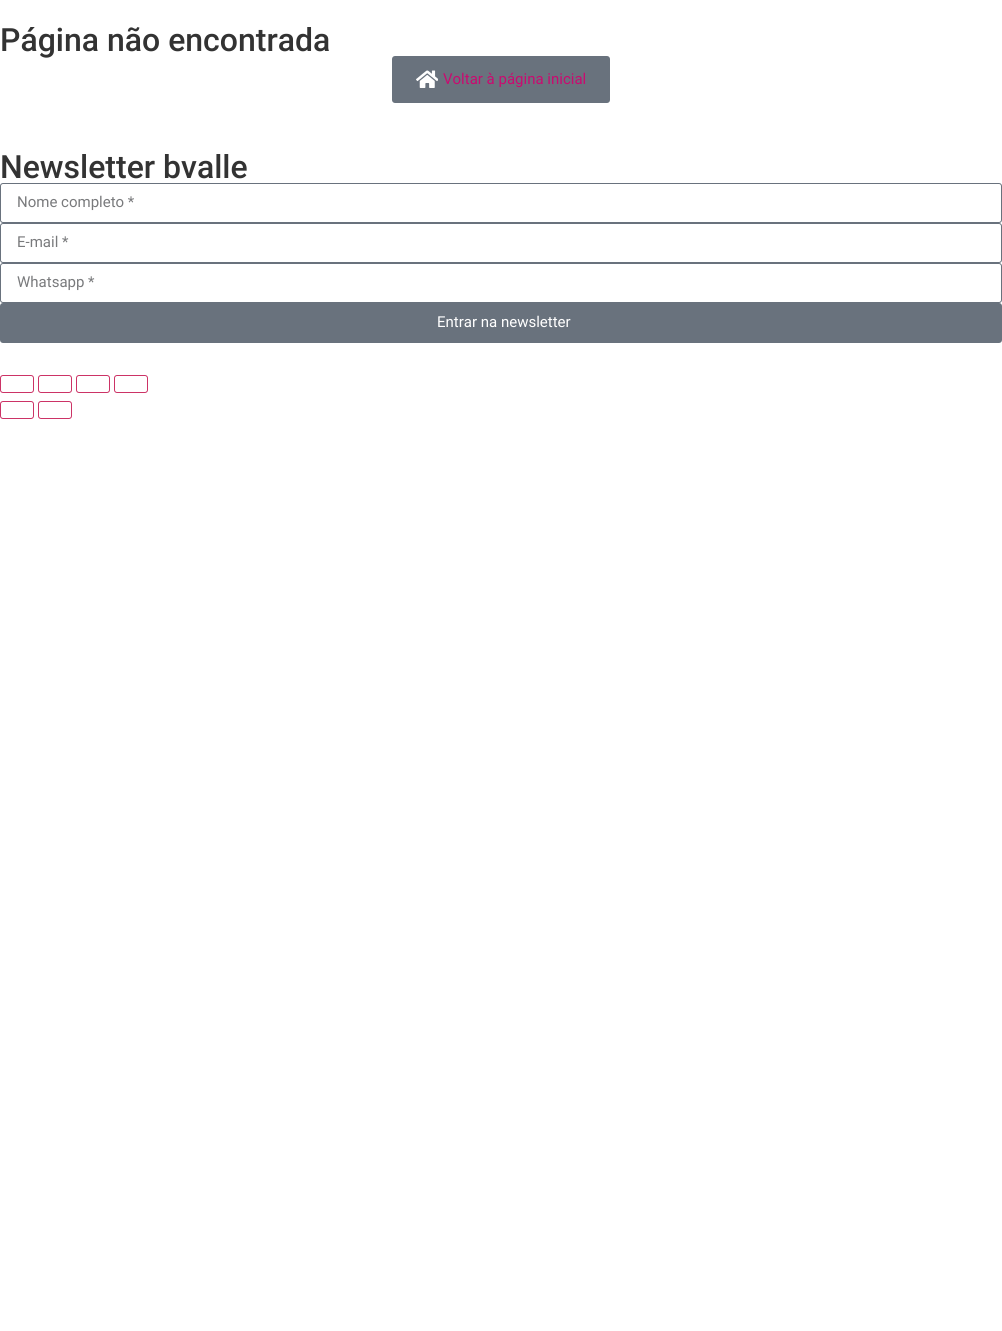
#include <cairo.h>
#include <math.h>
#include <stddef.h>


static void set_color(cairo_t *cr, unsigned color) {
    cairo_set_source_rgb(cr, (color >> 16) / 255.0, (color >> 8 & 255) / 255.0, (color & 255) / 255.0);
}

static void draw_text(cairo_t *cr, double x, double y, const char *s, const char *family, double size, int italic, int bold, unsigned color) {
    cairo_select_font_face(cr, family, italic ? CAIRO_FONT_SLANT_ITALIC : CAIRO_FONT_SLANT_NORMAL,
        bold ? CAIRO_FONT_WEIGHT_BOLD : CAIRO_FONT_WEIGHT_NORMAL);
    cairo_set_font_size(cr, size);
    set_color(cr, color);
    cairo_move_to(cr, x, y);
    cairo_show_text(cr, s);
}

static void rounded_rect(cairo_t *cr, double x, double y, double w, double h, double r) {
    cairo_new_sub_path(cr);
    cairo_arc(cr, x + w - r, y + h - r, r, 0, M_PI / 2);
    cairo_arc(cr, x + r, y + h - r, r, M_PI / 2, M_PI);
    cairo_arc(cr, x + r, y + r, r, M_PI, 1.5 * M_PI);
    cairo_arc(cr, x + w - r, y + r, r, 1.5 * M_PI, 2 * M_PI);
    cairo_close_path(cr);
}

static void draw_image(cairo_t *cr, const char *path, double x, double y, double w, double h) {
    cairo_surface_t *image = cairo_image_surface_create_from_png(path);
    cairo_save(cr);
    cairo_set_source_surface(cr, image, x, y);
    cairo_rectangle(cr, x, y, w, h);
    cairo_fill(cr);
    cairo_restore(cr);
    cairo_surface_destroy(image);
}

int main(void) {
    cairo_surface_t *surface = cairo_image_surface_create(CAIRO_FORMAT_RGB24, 1002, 1331);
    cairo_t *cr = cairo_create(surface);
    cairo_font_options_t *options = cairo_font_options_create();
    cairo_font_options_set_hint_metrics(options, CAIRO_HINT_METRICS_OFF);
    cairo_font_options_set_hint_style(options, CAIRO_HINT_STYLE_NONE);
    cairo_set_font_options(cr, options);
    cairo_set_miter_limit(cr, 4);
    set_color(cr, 0xFFFFFF);
    cairo_paint(cr);
    draw_text(cr, 0, 51, "Página não encontrada", "Roboto Medium", 32, 0, 0, 0x333333);
    set_color(cr, 0x69727D);
    rounded_rect(cr, 392, 56, 218, 47, 3);
    cairo_fill(cr);
    draw_image(cr, "assets/img1.png", 416, 70, 22, 18);
    draw_text(cr, 443, 84, "Voltar à página inicial", "Roboto", 15, 0, 0, 0xC90B70);
    draw_text(cr, 0, 178, "Newsletter bvalle", "Roboto Medium", 32, 0, 0, 0x333333);
    rounded_rect(cr, 0.5, 183.5, 1001, 39, 2.5);
    set_color(cr, 0x69727D);
    cairo_set_line_width(cr, 1);
    cairo_stroke(cr);
    draw_text(cr, 17, 207, "Nome completo *", "Roboto", 15, 0, 0, 0x797A7C);
    rounded_rect(cr, 0.5, 223.5, 1001, 39, 2.5);
    set_color(cr, 0x69727D);
    cairo_stroke(cr);
    draw_text(cr, 17, 247, "E-mail *", "Roboto", 15, 0, 0, 0x797A7C);
    rounded_rect(cr, 0.5, 263.5, 1001, 39, 2.5);
    set_color(cr, 0x69727D);
    cairo_stroke(cr);
    draw_text(cr, 17, 287, "Whatsapp *", "Roboto", 15, 0, 0, 0x797A7C);
    set_color(cr, 0x69727D);
    rounded_rect(cr, 0, 303, 1002, 40, 3);
    cairo_fill(cr);
    draw_text(cr, 437, 327, "Entrar na newsletter", "Roboto", 15, 0, 0, 0xFFFFFF);
    rounded_rect(cr, 0.5, 375.5, 33, 17, 2.5);
    set_color(cr, 0xCC3366);
    cairo_stroke(cr);
    rounded_rect(cr, 38.5, 375.5, 33, 17, 2.5);
    cairo_stroke(cr);
    rounded_rect(cr, 76.5, 375.5, 33, 17, 2.5);
    cairo_stroke(cr);
    rounded_rect(cr, 114.5, 375.5, 33, 17, 2.5);
    cairo_stroke(cr);
    rounded_rect(cr, 0.5, 401.5, 33, 17, 2.5);
    cairo_stroke(cr);
    rounded_rect(cr, 38.5, 401.5, 33, 17, 2.5);
    cairo_stroke(cr);
    cairo_surface_write_to_png(surface, "output.png");
    cairo_font_options_destroy(options);
    cairo_destroy(cr);
    cairo_surface_destroy(surface);
    return 0;
}
